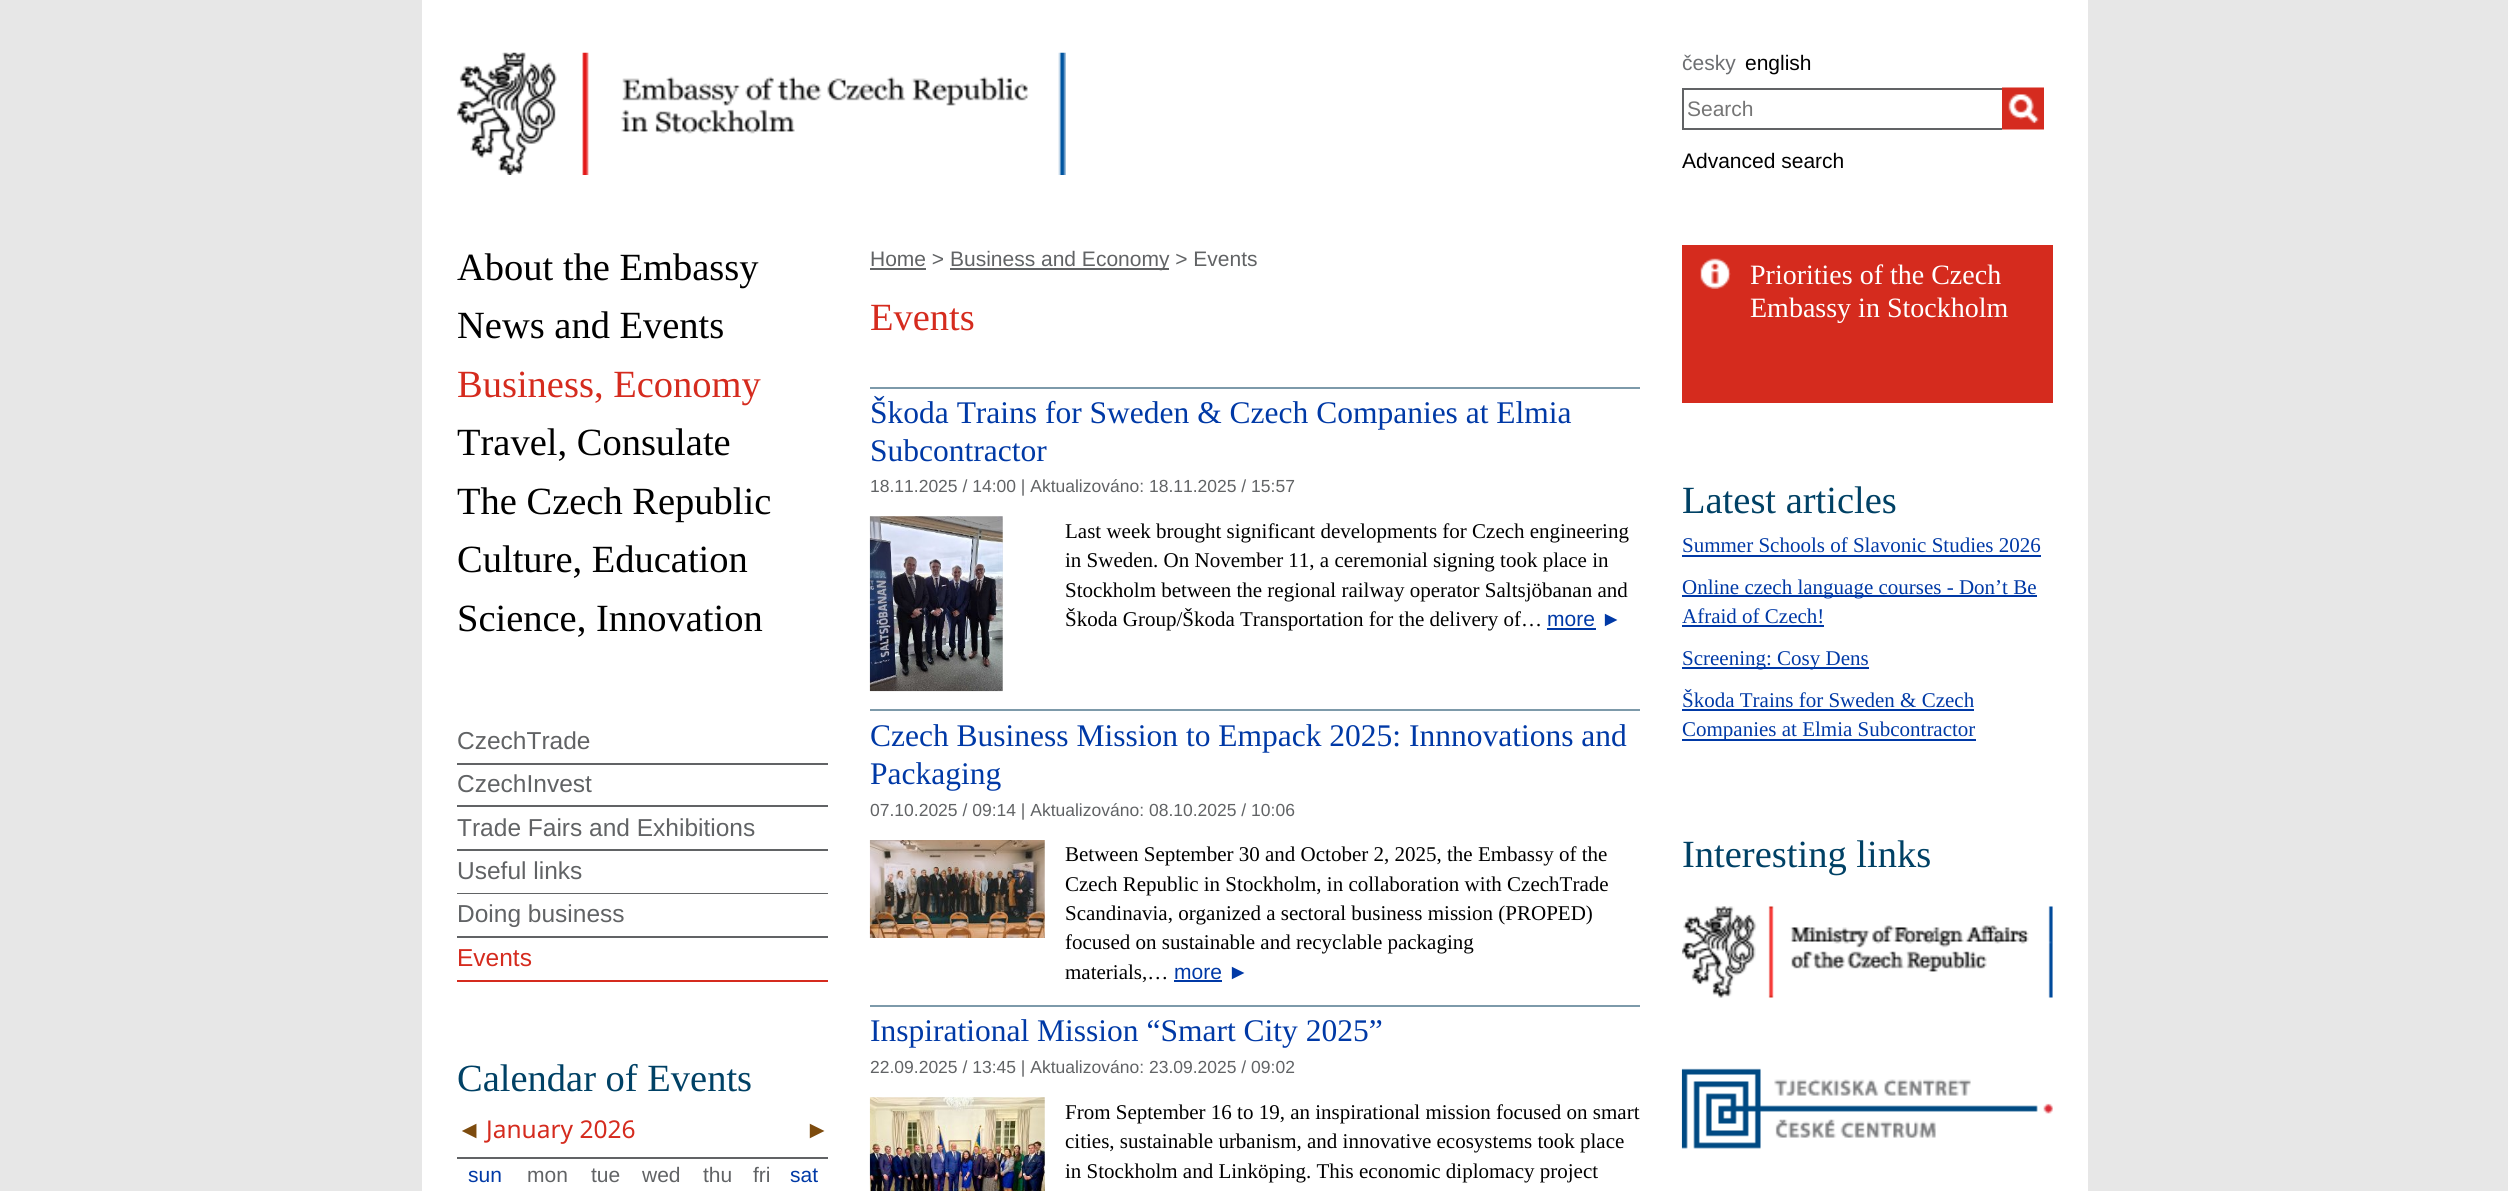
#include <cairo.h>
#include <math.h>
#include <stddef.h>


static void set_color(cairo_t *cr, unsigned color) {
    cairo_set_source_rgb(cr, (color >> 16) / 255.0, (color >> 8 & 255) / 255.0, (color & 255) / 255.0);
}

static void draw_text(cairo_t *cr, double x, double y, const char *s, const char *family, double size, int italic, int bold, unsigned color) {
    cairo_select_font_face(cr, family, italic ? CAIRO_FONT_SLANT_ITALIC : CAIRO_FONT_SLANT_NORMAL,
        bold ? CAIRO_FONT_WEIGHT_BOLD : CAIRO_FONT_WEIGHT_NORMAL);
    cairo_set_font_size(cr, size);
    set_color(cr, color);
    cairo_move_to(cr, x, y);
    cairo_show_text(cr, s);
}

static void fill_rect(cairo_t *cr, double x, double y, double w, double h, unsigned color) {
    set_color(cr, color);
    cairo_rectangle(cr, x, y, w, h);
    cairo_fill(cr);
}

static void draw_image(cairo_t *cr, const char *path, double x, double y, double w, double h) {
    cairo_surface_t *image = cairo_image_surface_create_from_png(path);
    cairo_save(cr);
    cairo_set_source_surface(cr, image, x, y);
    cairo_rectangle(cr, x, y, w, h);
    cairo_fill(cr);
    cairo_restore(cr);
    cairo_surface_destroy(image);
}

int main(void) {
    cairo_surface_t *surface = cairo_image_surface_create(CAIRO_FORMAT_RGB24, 2508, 1191);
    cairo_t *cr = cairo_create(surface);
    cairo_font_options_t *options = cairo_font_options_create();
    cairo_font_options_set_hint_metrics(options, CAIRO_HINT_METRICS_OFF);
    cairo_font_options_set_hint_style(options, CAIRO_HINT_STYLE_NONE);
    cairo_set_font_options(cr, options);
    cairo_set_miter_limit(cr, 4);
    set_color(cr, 0xE7E7E7);
    cairo_paint(cr);
    fill_rect(cr, 422, 0, 1666, 1191, 0xFFFFFF);
    draw_image(cr, "assets/img1.png", 456, 52, 610, 123);
    draw_text(cr, 1682, 70, "česky", "Liberation Sans", 21, 0, 0, 0x6D6F72);
    draw_text(cr, 1745, 70, "english", "Liberation Sans", 21, 0, 0, 0x000000);
    fill_rect(cr, 1682, 88, 320, 2, 0x616365);
    fill_rect(cr, 1682, 128, 320, 2, 0x616365);
    fill_rect(cr, 1682, 88, 2, 42, 0x616365);
    draw_text(cr, 1687, 116, "Search", "Liberation Sans", 21, 0, 0, 0x757575);
    draw_image(cr, "assets/img2.png", 2002, 87, 42, 43);
    draw_text(cr, 1682, 168, "Advanced search", "Liberation Sans", 21, 0, 0, 0x000000);
    draw_text(cr, 457, 280, "About the Embassy", "Liberation Serif", 38.5, 0, 0, 0x000000);
    draw_text(cr, 457, 338, "News and Events", "Liberation Serif", 38.5, 0, 0, 0x000000);
    draw_text(cr, 457, 397, "Business, Economy", "Liberation Serif", 38.5, 0, 0, 0xD52B1E);
    draw_text(cr, 457, 455, "Travel, Consulate", "Liberation Serif", 38.5, 0, 0, 0x000000);
    draw_text(cr, 457, 514, "The Czech Republic", "Liberation Serif", 38.5, 0, 0, 0x000000);
    draw_text(cr, 457, 572, "Culture, Education", "Liberation Serif", 38.5, 0, 0, 0x000000);
    draw_text(cr, 457, 631, "Science, Innovation", "Liberation Serif", 38.5, 0, 0, 0x000000);
    draw_text(cr, 870, 266, "Home > Business", "Liberation Sans", 21, 0, 0, 0x616365);
    fill_rect(cr, 870, 268, 56, 2, 0x616365);
    fill_rect(cr, 950, 268, 219, 2, 0x616365);
    draw_text(cr, 1041, 266, "and Economy > Events", "Liberation Sans", 21, 0, 0, 0x616365);
    draw_text(cr, 870, 330, "Events", "Liberation Serif", 38.5, 0, 0, 0xD52B1E);
    fill_rect(cr, 870, 387, 770, 2, 0x7D9AAA);
    draw_text(cr, 870, 423, "Škoda Trains for Sweden & Czech Companies at Elmia", "Liberation Serif", 31.5, 0, 0, 0x0039A6);
    draw_text(cr, 870, 461, "Subcontractor", "Liberation Serif", 31.5, 0, 0, 0x0039A6);
    draw_text(cr, 870, 492, "18.11.2025 / 14:00 | Aktualizováno: 18.11.2025 / 15:57", "Liberation Sans", 17.5, 0, 0, 0x616365);
    draw_image(cr, "assets/img3.png", 869, 516, 134, 176);
    draw_text(cr, 1065, 538, "Last week brought significant developments for Czech engineering", "Liberation Serif", 21, 0, 0, 0x000000);
    draw_text(cr, 1065, 567, "in Sweden. On November 11, a ceremonial signing took place in", "Liberation Serif", 21, 0, 0, 0x000000);
    draw_text(cr, 1065, 597, "Stockholm between the regional railway operator Saltsjöbanan and", "Liberation Serif", 21, 0, 0, 0x000000);
    draw_text(cr, 1065, 626, "Škoda Group/Škoda Transportation for the delivery of…", "Liberation Serif", 21, 0, 0, 0x000000);
    draw_text(cr, 1547, 626, "more ►", "Liberation Sans", 21, 0, 0, 0x0039A6);
    fill_rect(cr, 1547, 628, 49, 2, 0x0039A6);
    fill_rect(cr, 870, 709, 770, 2, 0x7D9AAA);
    draw_text(cr, 870, 746, "Czech Business Mission to Empack 2025: Innnovations and", "Liberation Serif", 31.5, 0, 0, 0x0039A6);
    draw_text(cr, 870, 784, "Packaging", "Liberation Serif", 31.5, 0, 0, 0x0039A6);
    draw_text(cr, 870, 816, "07.10.2025 / 09:14 | Aktualizováno: 08.10.2025 / 10:06", "Liberation Sans", 17.5, 0, 0, 0x616365);
    draw_image(cr, "assets/img4.png", 869, 840, 176, 98);
    draw_text(cr, 1065, 861, "Between September 30 and October 2, 2025, the Embassy of the", "Liberation Serif", 21, 0, 0, 0x000000);
    draw_text(cr, 1065, 891, "Czech Republic in Stockholm, in collaboration with CzechTrade", "Liberation Serif", 21, 0, 0, 0x000000);
    draw_text(cr, 1065, 920, "Scandinavia, organized a sectoral business mission (PROPED)", "Liberation Serif", 21, 0, 0, 0x000000);
    draw_text(cr, 1065, 949, "focused on sustainable and recyclable packaging", "Liberation Serif", 21, 0, 0, 0x000000);
    draw_text(cr, 1065, 979, "materials,…", "Liberation Serif", 21, 0, 0, 0x000000);
    draw_text(cr, 1174, 979, "more ►", "Liberation Sans", 21, 0, 0, 0x0039A6);
    fill_rect(cr, 1174, 980, 48, 2, 0x0039A6);
    fill_rect(cr, 870, 1005, 770, 2, 0x7D9AAA);
    draw_text(cr, 870, 1041, "Inspirational Mission “Smart City 2025”", "Liberation Serif", 31.5, 0, 0, 0x0039A6);
    draw_text(cr, 870, 1073, "22.09.2025 / 13:45 | Aktualizováno: 23.09.2025 / 09:02", "Liberation Sans", 17.5, 0, 0, 0x616365);
    draw_image(cr, "assets/img5.png", 869, 1097, 176, 94);
    draw_text(cr, 1065, 1119, "From September 16 to 19, an inspirational mission focused on smart", "Liberation Serif", 21, 0, 0, 0x000000);
    draw_text(cr, 1065, 1148, "cities, sustainable urbanism, and innovative ecosystems took place", "Liberation Serif", 21, 0, 0, 0x000000);
    draw_text(cr, 1065, 1178, "in Stockholm and Linköping. This economic diplomacy project", "Liberation Serif", 21, 0, 0, 0x000000);
    fill_rect(cr, 457, 763, 371, 2, 0x616365);
    draw_text(cr, 457, 749, "CzechTrade", "Liberation Sans", 24.5, 0, 0, 0x616365);
    fill_rect(cr, 457, 805, 371, 2, 0x616365);
    draw_text(cr, 457, 792, "CzechInvest", "Liberation Sans", 24.5, 0, 0, 0x616365);
    fill_rect(cr, 457, 849, 371, 2, 0x616365);
    draw_text(cr, 457, 836, "Trade Fairs and Exhibitions", "Liberation Sans", 24.5, 0, 0, 0x616365);
    fill_rect(cr, 457, 893, 371, 1, 0x616365);
    draw_text(cr, 457, 879, "Useful links", "Liberation Sans", 24.5, 0, 0, 0x616365);
    fill_rect(cr, 457, 936, 371, 2, 0x616365);
    draw_text(cr, 457, 922, "Doing business", "Liberation Sans", 24.5, 0, 0, 0x616365);
    fill_rect(cr, 457, 980, 371, 2, 0xD52B1E);
    draw_text(cr, 457, 966, "Events", "Liberation Sans", 24.5, 0, 0, 0xD52B1E);
    draw_text(cr, 457, 1091, "Calendar of Events", "Liberation Serif", 38.5, 0, 0, 0x004165);
    fill_rect(cr, 457, 1157, 371, 2, 0x616365);
    draw_text(cr, 457, 1138, "◄", "Liberation Serif", 24.5, 0, 0, 0x7D4B0E);
    draw_text(cr, 486, 1138, "January 2026", "Noto Sans", 24.5, 0, 0, 0xD52B1E);
    draw_text(cr, 805, 1138, "►", "Liberation Serif", 24.5, 0, 0, 0x7D4B0E);
    draw_text(cr, 468, 1182, "sun", "Liberation Sans", 21, 0, 0, 0x0039A6);
    draw_text(cr, 527, 1182, "mon", "Liberation Sans", 21, 0, 0, 0x616365);
    draw_text(cr, 591, 1182, "tue", "Liberation Sans", 21, 0, 0, 0x616365);
    draw_text(cr, 642, 1182, "wed", "Liberation Sans", 21, 0, 0, 0x616365);
    draw_text(cr, 703, 1182, "thu", "Liberation Sans", 21, 0, 0, 0x616365);
    draw_text(cr, 753, 1182, "fri", "Liberation Sans", 21, 0, 0, 0x616365);
    draw_text(cr, 790, 1182, "sat", "Liberation Sans", 21, 0, 0, 0x0039A6);
    fill_rect(cr, 1682, 245, 371, 158, 0xD52B1E);
    draw_image(cr, "assets/img6.png", 1700, 258, 31, 31);
    draw_text(cr, 1750, 284, "Priorities of the Czech", "Liberation Serif", 28, 0, 0, 0xFFFFFF);
    draw_text(cr, 1750, 317, "Embassy in Stockholm", "Liberation Serif", 28, 0, 0, 0xFFFFFF);
    draw_text(cr, 1682, 513, "Latest articles", "Liberation Serif", 38.5, 0, 0, 0x004165);
    draw_text(cr, 1682, 552, "Summer Schools of Slavonic Studies 2026", "Liberation Serif", 21, 0, 0, 0x0039A6);
    fill_rect(cr, 1682, 555, 359, 2, 0x0039A6);
    fill_rect(cr, 1682, 595, 355, 2, 0x0039A6);
    draw_text(cr, 1682, 594, "Online czech language courses - Don’t Be", "Liberation Serif", 21, 0, 0, 0x0039A6);
    draw_text(cr, 1682, 623, "Afraid of Czech!", "Liberation Serif", 21, 0, 0, 0x0039A6);
    fill_rect(cr, 1682, 625, 142, 2, 0x0039A6);
    fill_rect(cr, 1682, 667, 187, 2, 0x0039A6);
    draw_text(cr, 1682, 665, "Screening: Cosy Dens", "Liberation Serif", 21, 0, 0, 0x0039A6);
    draw_text(cr, 1682, 707, "Škoda Trains for Sweden & Czech", "Liberation Serif", 21, 0, 0, 0x0039A6);
    fill_rect(cr, 1682, 709, 292, 2, 0x0039A6);
    fill_rect(cr, 1682, 739, 294, 2, 0x0039A6);
    draw_text(cr, 1682, 736, "Companies at Elmia Subcontractor", "Liberation Serif", 21, 0, 0, 0x0039A6);
    draw_text(cr, 1682, 867, "Interesting links", "Liberation Serif", 38.5, 0, 0, 0x004165);
    draw_image(cr, "assets/img7.png", 1681, 906, 372, 92);
    draw_image(cr, "assets/img8.png", 1681, 1068, 372, 81);
    cairo_surface_write_to_png(surface, "output.png");
    cairo_font_options_destroy(options);
    cairo_destroy(cr);
    cairo_surface_destroy(surface);
    return 0;
}
